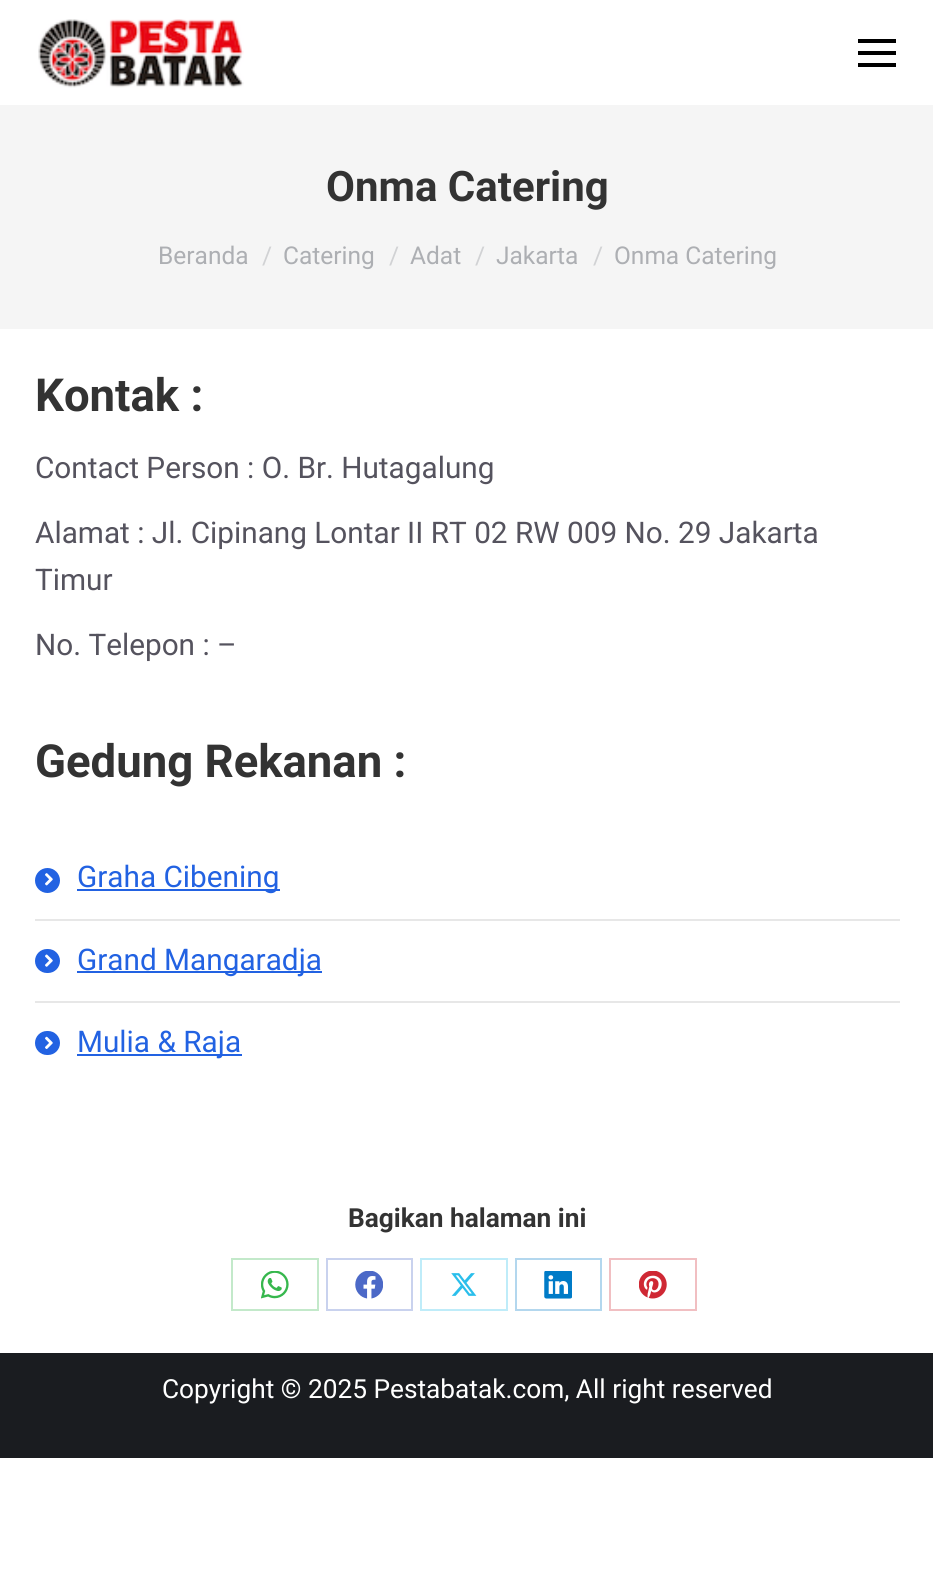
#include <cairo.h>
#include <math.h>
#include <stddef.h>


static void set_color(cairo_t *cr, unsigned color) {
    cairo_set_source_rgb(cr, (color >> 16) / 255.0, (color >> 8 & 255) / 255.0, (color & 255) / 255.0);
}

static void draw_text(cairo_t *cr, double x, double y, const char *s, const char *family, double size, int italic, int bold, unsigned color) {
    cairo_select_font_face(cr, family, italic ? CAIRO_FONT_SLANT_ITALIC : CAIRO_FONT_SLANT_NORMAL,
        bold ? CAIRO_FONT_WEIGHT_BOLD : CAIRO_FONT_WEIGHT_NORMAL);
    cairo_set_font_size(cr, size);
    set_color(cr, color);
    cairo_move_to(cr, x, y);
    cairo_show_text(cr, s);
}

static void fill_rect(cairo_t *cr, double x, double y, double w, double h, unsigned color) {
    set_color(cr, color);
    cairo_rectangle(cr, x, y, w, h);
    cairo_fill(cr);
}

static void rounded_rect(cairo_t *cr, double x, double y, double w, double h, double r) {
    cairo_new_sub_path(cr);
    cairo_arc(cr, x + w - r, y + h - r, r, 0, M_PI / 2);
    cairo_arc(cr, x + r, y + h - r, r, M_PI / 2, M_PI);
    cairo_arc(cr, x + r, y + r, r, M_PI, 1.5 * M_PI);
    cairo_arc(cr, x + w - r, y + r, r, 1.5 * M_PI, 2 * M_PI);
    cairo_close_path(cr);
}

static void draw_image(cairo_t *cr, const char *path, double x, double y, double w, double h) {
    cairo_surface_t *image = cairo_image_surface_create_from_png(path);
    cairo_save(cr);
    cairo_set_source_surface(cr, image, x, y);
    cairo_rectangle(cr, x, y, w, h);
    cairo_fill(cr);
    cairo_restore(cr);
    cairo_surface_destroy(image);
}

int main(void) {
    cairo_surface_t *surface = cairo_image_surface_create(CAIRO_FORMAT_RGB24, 933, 1580);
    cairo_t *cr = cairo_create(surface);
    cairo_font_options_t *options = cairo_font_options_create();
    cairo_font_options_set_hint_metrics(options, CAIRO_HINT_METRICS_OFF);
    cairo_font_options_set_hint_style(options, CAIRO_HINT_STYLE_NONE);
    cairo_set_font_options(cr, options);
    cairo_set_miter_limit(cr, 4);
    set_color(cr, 0xFFFFFF);
    cairo_paint(cr);
    draw_image(cr, "assets/img1.png", 38, 19, 206, 69);
    fill_rect(cr, 858, 39, 38, 4, 0x000000);
    fill_rect(cr, 858, 51, 38, 4, 0x000000);
    fill_rect(cr, 858, 63, 38, 4, 0x000000);
    fill_rect(cr, 0, 105, 933, 224, 0xF5F5F5);
    draw_text(cr, 326, 201, "Onma Catering", "Roboto", 42, 0, 1, 0x333333);
    draw_text(cr, 158, 264, "Beranda", "Roboto", 24.5, 0, 0, 0xADAFB3);
    draw_text(cr, 262, 264, "/", "Roboto", 24.5, 0, 0, 0xD1D2D4);
    draw_text(cr, 283, 264, "Catering", "Roboto", 24.5, 0, 0, 0xADAFB3);
    draw_text(cr, 389, 264, "/", "Roboto", 24.5, 0, 0, 0xD1D2D4);
    draw_text(cr, 410, 264, "Adat", "Roboto", 24.5, 0, 0, 0xADAFB3);
    draw_text(cr, 475, 264, "/", "Roboto", 24.5, 0, 0, 0xD1D2D4);
    draw_text(cr, 496, 264, "Jakarta", "Roboto", 24.5, 0, 0, 0xADAFB3);
    draw_text(cr, 593, 264, "/", "Roboto", 24.5, 0, 0, 0xD1D2D4);
    draw_text(cr, 614, 264, "Onma Catering", "Roboto", 24.5, 0, 0, 0xADAFB3);
    draw_text(cr, 35, 411, "Kontak :", "Roboto", 45.5, 0, 1, 0x333333);
    draw_text(cr, 35, 478, "Contact Person : O. Br. Hutagalung", "Roboto", 29.75, 0, 0, 0x55535E);
    draw_text(cr, 35, 543, "Alamat : Jl. Cipinang Lontar II RT 02 RW 009 No. 29 Jakarta", "Roboto", 29.75, 0, 0, 0x55535E);
    draw_text(cr, 35, 590, "Timur", "Roboto", 29.75, 0, 0, 0x55535E);
    draw_text(cr, 35, 655, "No. Telepon : –", "Roboto", 29.75, 0, 0, 0x55535E);
    draw_text(cr, 35, 777, "Gedung Rekanan :", "Roboto", 45.5, 0, 1, 0x333333);
    set_color(cr, 0x2262E2);
    cairo_new_path(cr);
    cairo_arc(cr, 47.5, 880.5, 12.5, 0, 2 * M_PI);
    cairo_fill(cr);
    fill_rect(cr, 77, 889, 203, 2, 0x2262E2);
    draw_text(cr, 77, 887, "Graha Cibening", "Roboto", 29.75, 0, 0, 0x2262E2);
    draw_image(cr, "assets/img2.png", 45, 873, 8, 13);
    fill_rect(cr, 35, 919, 865, 2, 0xE7E7E7);
    set_color(cr, 0x2262E2);
    rounded_rect(cr, 35, 949, 25, 24, 12);
    cairo_fill(cr);
    fill_rect(cr, 77, 971, 245, 2, 0x2262E2);
    draw_text(cr, 77, 970, "Grand Mangaradja", "Roboto", 29.75, 0, 0, 0x2262E2);
    draw_image(cr, "assets/img3.png", 45, 954, 8, 13);
    fill_rect(cr, 35, 1001, 865, 2, 0xE7E7E7);
    set_color(cr, 0x2262E2);
    rounded_rect(cr, 35, 1031, 25, 24, 12);
    cairo_fill(cr);
    fill_rect(cr, 77, 1054, 165, 2, 0x2262E2);
    draw_text(cr, 77, 1052, "Mulia & Raja", "Roboto", 29.75, 0, 0, 0x2262E2);
    draw_image(cr, "assets/img4.png", 45, 1036, 8, 13);
    draw_text(cr, 348, 1227, "Bagikan halaman ini", "Roboto", 26.25, 0, 1, 0x333333);
    cairo_rectangle(cr, 232, 1259, 86, 51);
    set_color(cr, 0xC3E9CA);
    cairo_stroke(cr);
    draw_image(cr, "assets/img5.png", 261, 1271, 28, 28);
    cairo_rectangle(cr, 327, 1259, 85, 51);
    set_color(cr, 0xC9D2EE);
    cairo_stroke(cr);
    draw_image(cr, "assets/img6.png", 355, 1271, 28, 28);
    cairo_rectangle(cr, 421, 1259, 86, 51);
    set_color(cr, 0xBFECF9);
    cairo_stroke(cr);
    draw_image(cr, "assets/img7.png", 451, 1273, 26, 23);
    cairo_rectangle(cr, 516, 1259, 85, 51);
    set_color(cr, 0xB3D7EE);
    cairo_stroke(cr);
    draw_image(cr, "assets/img8.png", 544, 1271, 28, 28);
    cairo_rectangle(cr, 610, 1259, 86, 51);
    set_color(cr, 0xF1BFC2);
    cairo_stroke(cr);
    draw_image(cr, "assets/img9.png", 639, 1271, 28, 28);
    fill_rect(cr, 0, 1353, 933, 105, 0x1A1C20);
    draw_text(cr, 162, 1398, "Copyright © 2025 Pestabatak.com, All right reserved", "Roboto", 26.25, 0, 0, 0xFFFFFF);
    cairo_surface_write_to_png(surface, "output.png");
    cairo_font_options_destroy(options);
    cairo_destroy(cr);
    cairo_surface_destroy(surface);
    return 0;
}
